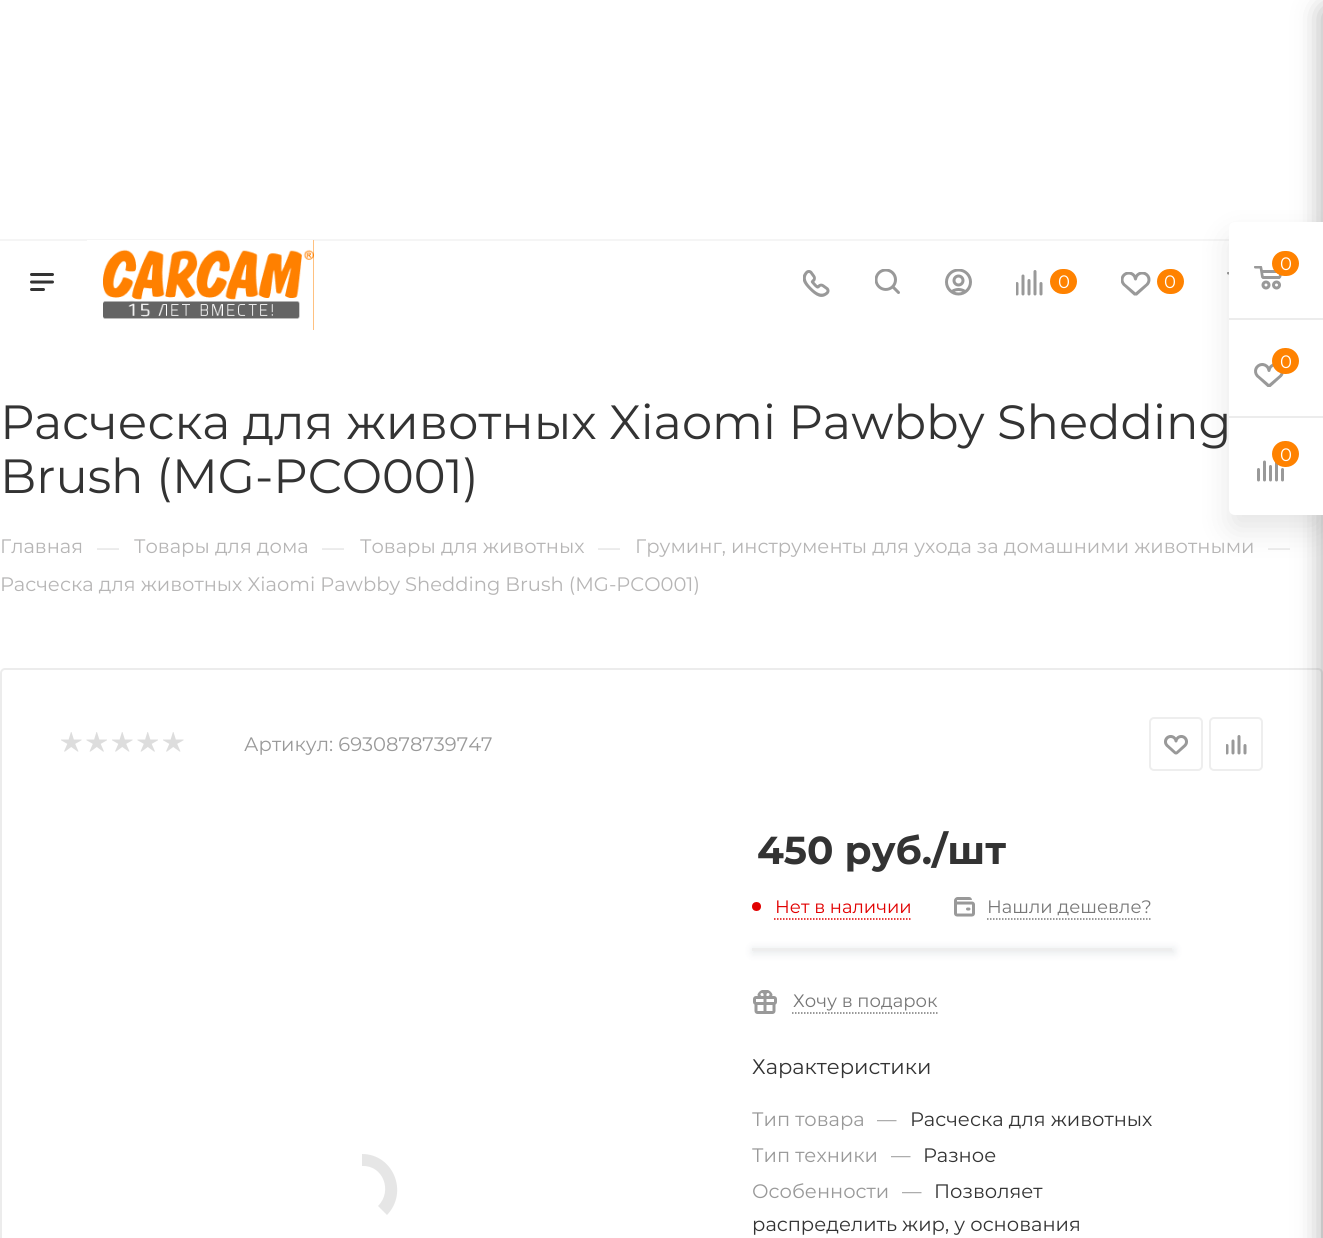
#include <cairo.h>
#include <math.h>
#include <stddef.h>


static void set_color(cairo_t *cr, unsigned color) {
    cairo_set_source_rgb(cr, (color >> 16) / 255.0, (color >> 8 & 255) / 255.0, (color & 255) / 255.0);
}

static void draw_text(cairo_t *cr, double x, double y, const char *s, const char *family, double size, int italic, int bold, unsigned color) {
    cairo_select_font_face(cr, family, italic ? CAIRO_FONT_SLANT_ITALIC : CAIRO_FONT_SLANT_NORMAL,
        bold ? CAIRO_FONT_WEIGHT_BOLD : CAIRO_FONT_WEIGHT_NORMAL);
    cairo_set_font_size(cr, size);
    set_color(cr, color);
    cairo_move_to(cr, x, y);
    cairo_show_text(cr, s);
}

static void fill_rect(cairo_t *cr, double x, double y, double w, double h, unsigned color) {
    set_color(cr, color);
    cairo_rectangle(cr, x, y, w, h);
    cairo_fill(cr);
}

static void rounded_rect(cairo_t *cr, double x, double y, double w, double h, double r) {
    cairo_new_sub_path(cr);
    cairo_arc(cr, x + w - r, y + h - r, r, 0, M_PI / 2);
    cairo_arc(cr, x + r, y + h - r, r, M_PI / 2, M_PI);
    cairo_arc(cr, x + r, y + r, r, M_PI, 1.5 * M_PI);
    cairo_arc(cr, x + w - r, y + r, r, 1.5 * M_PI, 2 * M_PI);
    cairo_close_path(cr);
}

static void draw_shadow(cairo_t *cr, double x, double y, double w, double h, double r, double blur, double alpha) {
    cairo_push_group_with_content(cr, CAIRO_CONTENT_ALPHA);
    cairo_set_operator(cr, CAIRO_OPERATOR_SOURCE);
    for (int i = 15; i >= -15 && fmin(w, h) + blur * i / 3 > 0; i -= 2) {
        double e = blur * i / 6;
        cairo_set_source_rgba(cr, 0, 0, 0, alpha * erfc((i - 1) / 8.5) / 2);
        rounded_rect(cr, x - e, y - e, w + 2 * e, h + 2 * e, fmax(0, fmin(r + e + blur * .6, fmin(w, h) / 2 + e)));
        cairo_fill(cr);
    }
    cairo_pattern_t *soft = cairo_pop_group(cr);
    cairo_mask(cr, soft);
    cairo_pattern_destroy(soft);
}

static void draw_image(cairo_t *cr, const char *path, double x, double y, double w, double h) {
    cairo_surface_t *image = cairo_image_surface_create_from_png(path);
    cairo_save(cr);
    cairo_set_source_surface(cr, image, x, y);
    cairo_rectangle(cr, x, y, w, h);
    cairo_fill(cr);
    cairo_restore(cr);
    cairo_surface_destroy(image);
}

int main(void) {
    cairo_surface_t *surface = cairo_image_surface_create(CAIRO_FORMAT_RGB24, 1323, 1238);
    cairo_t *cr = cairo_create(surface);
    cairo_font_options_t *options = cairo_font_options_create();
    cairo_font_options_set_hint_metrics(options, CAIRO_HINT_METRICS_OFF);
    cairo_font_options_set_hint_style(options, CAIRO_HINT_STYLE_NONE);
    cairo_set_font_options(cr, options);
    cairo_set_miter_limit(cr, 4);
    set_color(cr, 0xFFFFFF);
    cairo_paint(cr);
    rounded_rect(cr, 1, 669, 1321, 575, 4);
    set_color(cr, 0xECECEC);
    cairo_stroke(cr);
    set_color(cr, 0x2C2C2C);
    draw_shadow(cr, 1323, 9, 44, 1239, 3, 13.5, 0.4);
    fill_rect(cr, 0, 239, 1229, 2, 0xF5F5F5);
    draw_image(cr, "assets/img9.png", 1227, 272, 2, 3);
    set_color(cr, 0xFF8200);
    rounded_rect(cr, 1157, 269, 27, 25, 12.5);
    cairo_fill(cr);
    set_color(cr, 0x000000);
    draw_shadow(cr, 1229, 237, 94, 293, 6, 15, 0.1);
    set_color(cr, 0xFFFFFF);
    cairo_new_path(cr);
    cairo_move_to(cr, 1235, 222);
    cairo_line_to(cr, 1323, 222);
    cairo_line_to(cr, 1323, 515);
    cairo_line_to(cr, 1235, 515);
    cairo_curve_to(cr, 1231.5, 515, 1229, 512.5, 1229, 509);
    cairo_line_to(cr, 1229, 228);
    cairo_curve_to(cr, 1229, 224.5, 1231.5, 222, 1235, 222);
    cairo_close_path(cr);
    cairo_fill(cr);
    fill_rect(cr, 1229, 318, 94, 2, 0xECECEC);
    draw_image(cr, "assets/img1.png", 1254, 266, 28, 24);
    set_color(cr, 0xFF8200);
    rounded_rect(cr, 1272, 251, 27, 25, 12.5);
    cairo_fill(cr);
    draw_text(cr, 1280, 270, "0", "Montserrat", 18, 0, 0, 0xFFFFFF);
    fill_rect(cr, 1229, 416, 94, 2, 0xECECEC);
    draw_image(cr, "assets/img2.png", 1254, 363, 30, 24);
    set_color(cr, 0xFF8200);
    rounded_rect(cr, 1272, 348, 27, 26, 13);
    cairo_fill(cr);
    draw_text(cr, 1280, 368, "0", "Montserrat", 18, 0, 0, 0xFFFFFF);
    draw_image(cr, "assets/img3.png", 1257, 460, 27, 22);
    set_color(cr, 0xFF8200);
    rounded_rect(cr, 1272, 441, 27, 26, 13);
    cairo_fill(cr);
    draw_text(cr, 1280, 461, "0", "Montserrat", 18, 0, 0, 0xFFFFFF);
    draw_image(cr, "assets/img4.png", 30, 273, 24, 18);
    fill_rect(cr, 313, 240, 1, 90, 0xFF8200);
    draw_image(cr, "assets/img5.png", 87, 240, 227, 90);
    draw_image(cr, "assets/img6.png", 803, 270, 27, 27);
    draw_image(cr, "assets/img7.png", 875, 269, 25, 25);
    draw_image(cr, "assets/img8.png", 945, 269, 27, 27);
    draw_image(cr, "assets/img10.png", 1016, 270, 27, 26);
    rounded_rect(cr, 1050, 269, 27, 25, 12.5);
    cairo_fill(cr);
    draw_text(cr, 1058, 288, "0", "Montserrat", 18, 0, 0, 0xFFFFFF);
    draw_image(cr, "assets/img11.png", 1121, 272, 30, 24);
    draw_text(cr, 1164, 288, "0", "Montserrat", 18, 0, 0, 0xFFFFFF);
    draw_text(cr, 0, 439, "Расческа для животных Xiaomi Pawbby Shedding", "Montserrat", 48, 0, 0, 0x333333);
    draw_text(cr, 0, 493, "Brush (MG-PCO001)", "Montserrat", 48, 0, 0, 0x333333);
    draw_text(cr, 0, 553, "Главная", "Montserrat", 19.5, 0, 0, 0xB6B5B5);
    draw_text(cr, 97, 555, "—", "Montserrat", 22, 0, 0, 0xDDDDDD);
    draw_text(cr, 134, 553, "Товары для дома", "Montserrat", 19.5, 0, 0, 0xB6B5B5);
    draw_text(cr, 322, 555, "—", "Montserrat", 22, 0, 0, 0xDDDDDD);
    draw_text(cr, 360, 553, "Товары для животных", "Montserrat", 19.5, 0, 0, 0xB6B5B5);
    draw_text(cr, 598, 555, "—", "Montserrat", 22, 0, 0, 0xDDDDDD);
    draw_text(cr, 635, 553, "Груминг, инструменты для ухода за домашними животными", "Montserrat", 19.5, 0, 0, 0xB6B5B5);
    draw_text(cr, 1268, 555, "—", "Montserrat", 22, 0, 0, 0xDDDDDD);
    draw_text(cr, 0, 591, "Расческа для животных Xiaomi Pawbby Shedding Brush (MG-PCO001)", "Montserrat", 19.5, 0, 0, 0xB6B5B5);
    draw_image(cr, "assets/img12.png", 61, 732, 21, 20);
    draw_image(cr, "assets/img13.png", 86, 732, 21, 20);
    draw_image(cr, "assets/img12.png", 112, 732, 21, 20);
    draw_image(cr, "assets/img13.png", 137, 732, 21, 20);
    draw_image(cr, "assets/img12.png", 163, 732, 21, 20);
    draw_text(cr, 244, 751, "Артикул: 6930878739747", "Montserrat", 19.5, 0, 0, 0x999999);
    rounded_rect(cr, 1150, 718, 52, 52, 4);
    set_color(cr, 0xEEEEEE);
    cairo_stroke(cr);
    draw_image(cr, "assets/img14.png", 1164, 735, 24, 20);
    rounded_rect(cr, 1210, 718, 52, 52, 4);
    cairo_stroke(cr);
    draw_image(cr, "assets/img15.png", 1226, 735, 21, 20);
    set_color(cr, 0xE6E6E6);
    cairo_new_path(cr);
    cairo_move_to(cr, 362, 1154);
    cairo_curve_to(cr, 393, 1154, 409, 1192, 387, 1215);
    cairo_line_to(cr, 378, 1206);
    cairo_curve_to(cr, 393, 1191, 383, 1165, 362, 1166);
    cairo_close_path(cr);
    cairo_fill(cr);
    draw_text(cr, 757, 864, "450 руб./шт", "Montserrat", 39, 0, 1, 0x333333);
    set_color(cr, 0xE10000);
    cairo_new_path(cr);
    cairo_arc(cr, 756.5, 906.5, 4.5, 0, 2 * M_PI);
    cairo_fill(cr);
    draw_text(cr, 775, 913, "Нет в наличии", "Montserrat", 18, 0, 0, 0xE10000);
    cairo_new_path(cr);
    cairo_move_to(cr, 774, 919);
    cairo_line_to(cr, 912, 919);
    cairo_set_line_width(cr, 1.5);
    cairo_set_dash(cr, (double[]){1.5, 1.5}, 2, 0);
    cairo_stroke(cr);
    draw_image(cr, "assets/img16.png", 954, 897, 21, 20);
    draw_text(cr, 987, 913, "Нашли дешевле?", "Montserrat", 18, 0, 0, 0x777777);
    cairo_new_path(cr);
    cairo_move_to(cr, 987, 919);
    cairo_line_to(cr, 1152, 919);
    cairo_stroke(cr);
    set_color(cr, 0x223C50);
    draw_shadow(cr, 752, 948, 423, 6, 0, 4, 0.1);
    fill_rect(cr, 752, 948, 420, 3, 0xEEEEEE);
    draw_image(cr, "assets/img17.png", 753, 990, 24, 24);
    draw_text(cr, 793, 1007, "Хочу в подарок", "Montserrat", 18, 0, 0, 0x777777);
    cairo_new_path(cr);
    cairo_move_to(cr, 792, 1013);
    cairo_line_to(cr, 937.5, 1013);
    cairo_stroke(cr);
    draw_text(cr, 752, 1074, "Характеристики", "Montserrat", 21, 0, 0, 0x333333);
    draw_text(cr, 752, 1126, "Тип товара", "Montserrat", 19.5, 0, 0, 0x999999);
    draw_text(cr, 877, 1126, "—", "Montserrat", 19.5, 0, 0, 0x999999);
    draw_text(cr, 910, 1126, "Расческа для животных", "Montserrat", 19.5, 0, 0, 0x333333);
    draw_text(cr, 752, 1162, "Тип техники", "Montserrat", 19.5, 0, 0, 0x999999);
    draw_text(cr, 891, 1162, "—", "Montserrat", 19.5, 0, 0, 0x999999);
    draw_text(cr, 923, 1162, "Разное", "Montserrat", 19.5, 0, 0, 0x333333);
    draw_text(cr, 752, 1198, "Особенности", "Montserrat", 19.5, 0, 0, 0x999999);
    draw_text(cr, 902, 1198, "—", "Montserrat", 19.5, 0, 0, 0x999999);
    draw_text(cr, 934, 1198, "Позволяет", "Montserrat", 19.5, 0, 0, 0x333333);
    draw_text(cr, 752, 1231, "распределить жир, у основания", "Montserrat", 19.5, 0, 0, 0x333333);
    cairo_surface_write_to_png(surface, "output.png");
    cairo_font_options_destroy(options);
    cairo_destroy(cr);
    cairo_surface_destroy(surface);
    return 0;
}
